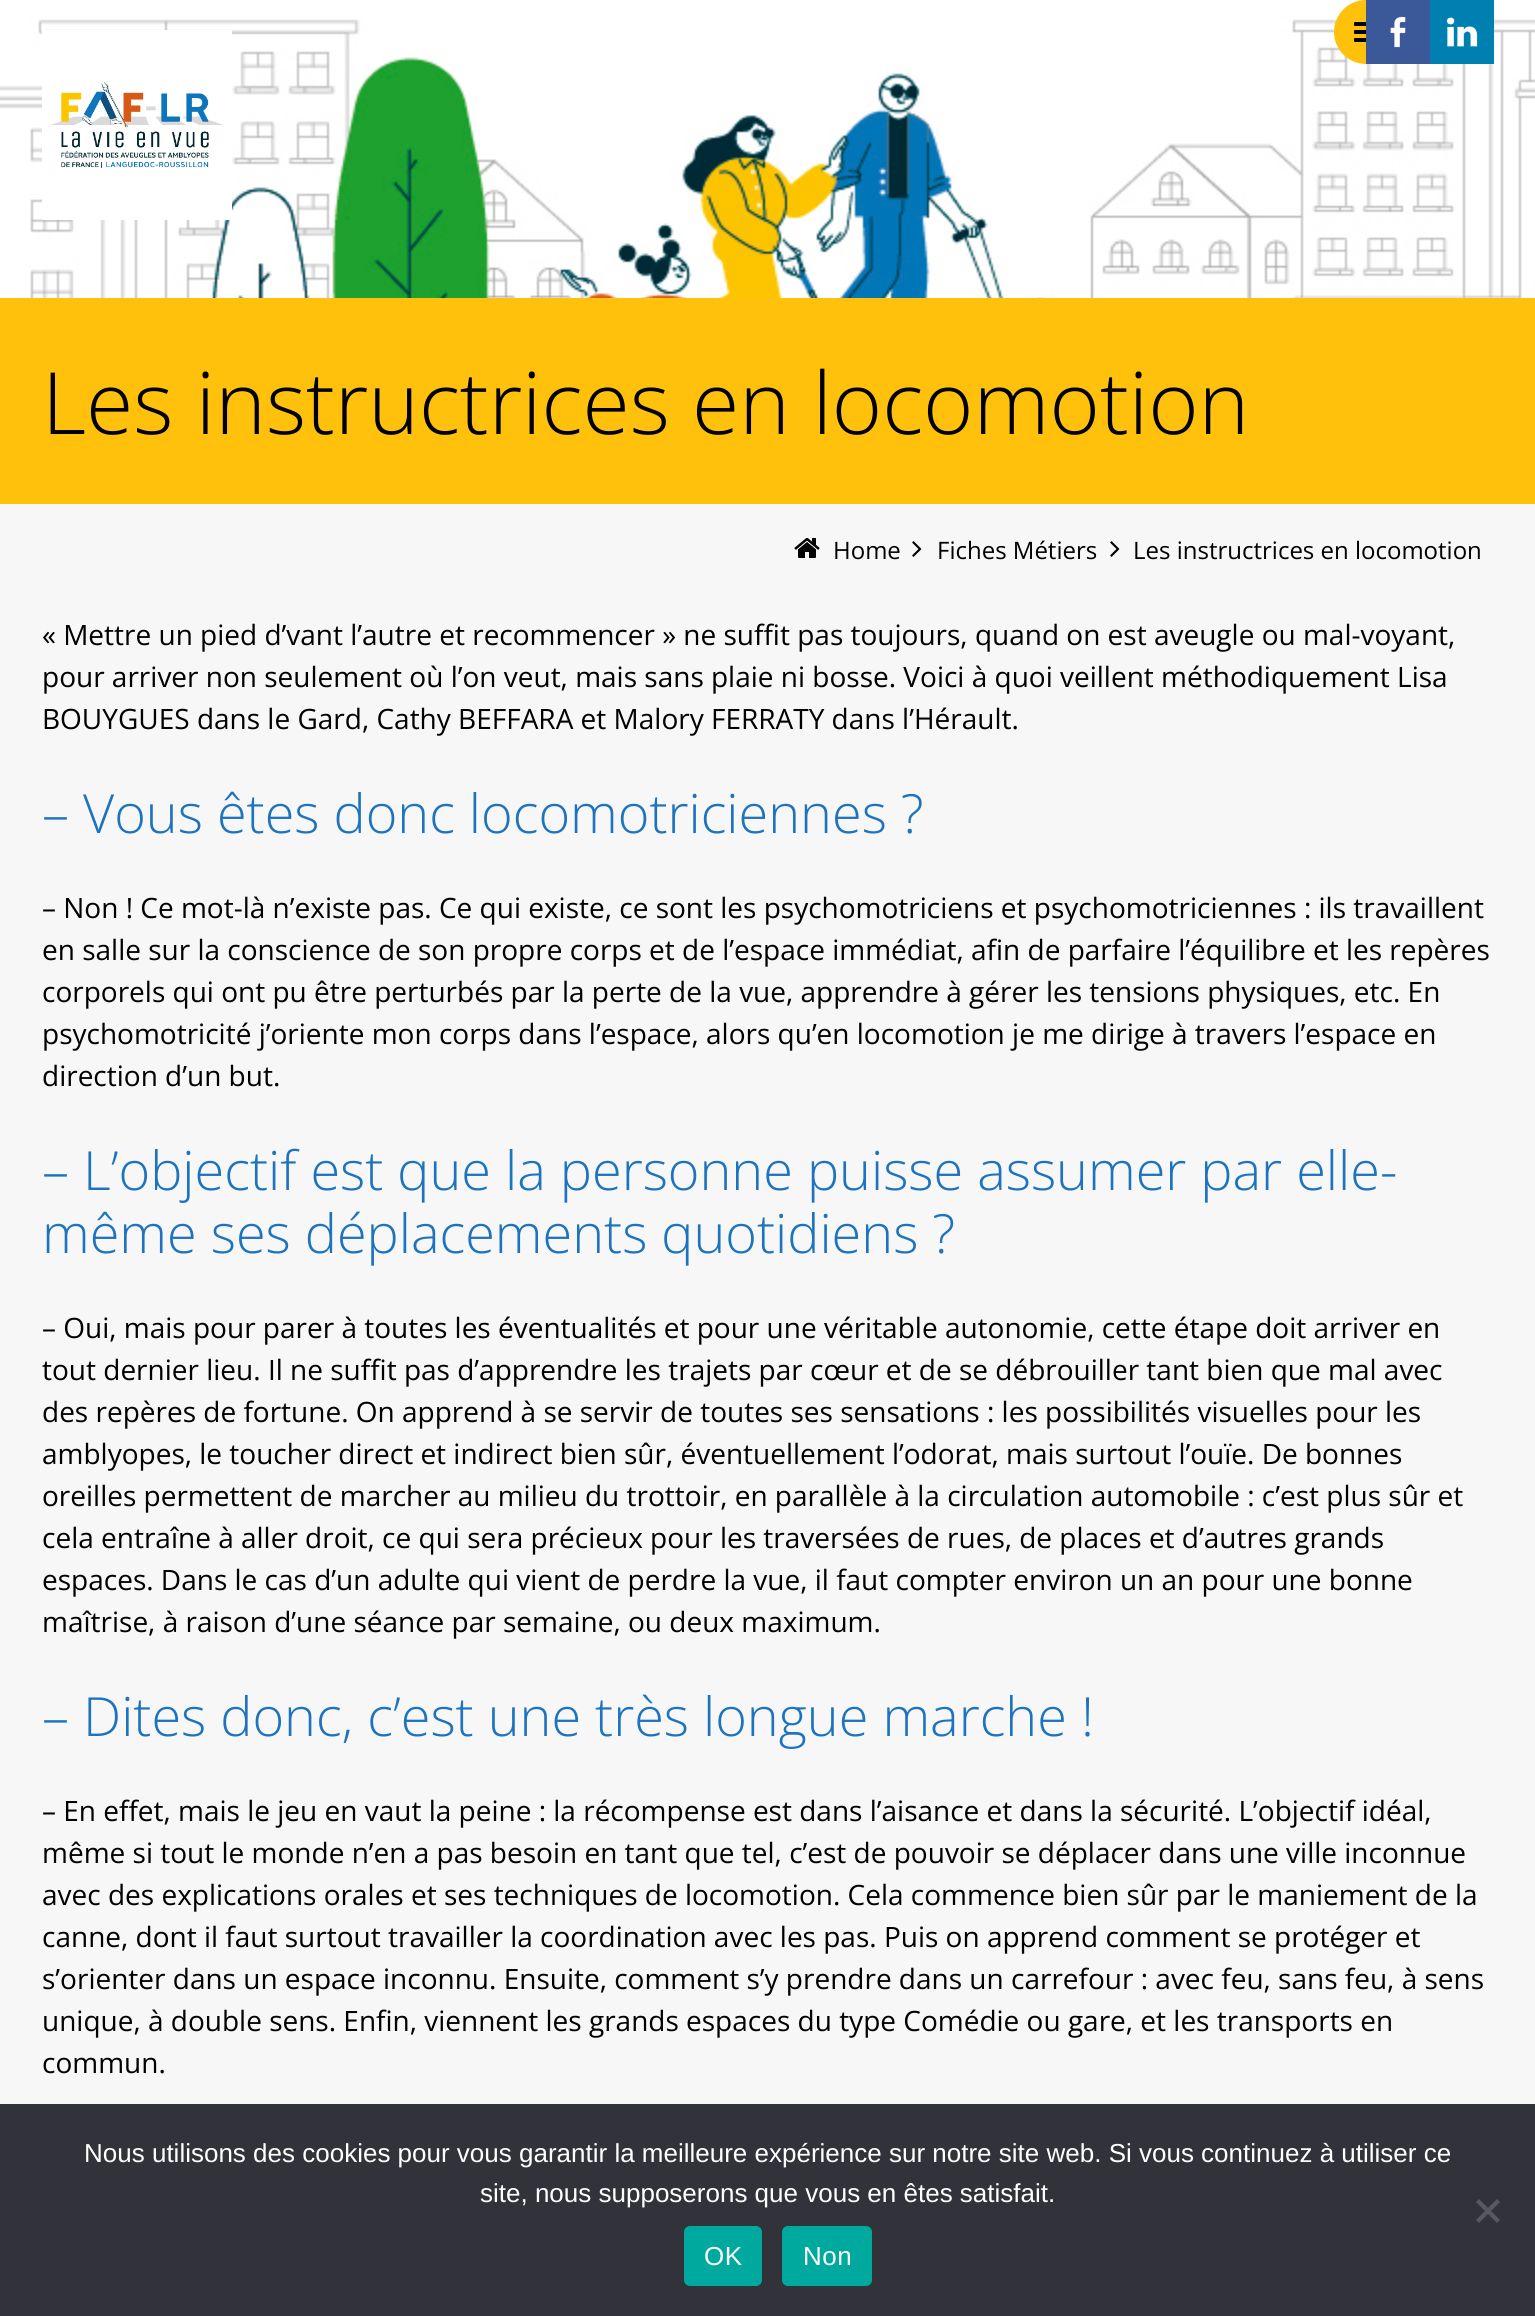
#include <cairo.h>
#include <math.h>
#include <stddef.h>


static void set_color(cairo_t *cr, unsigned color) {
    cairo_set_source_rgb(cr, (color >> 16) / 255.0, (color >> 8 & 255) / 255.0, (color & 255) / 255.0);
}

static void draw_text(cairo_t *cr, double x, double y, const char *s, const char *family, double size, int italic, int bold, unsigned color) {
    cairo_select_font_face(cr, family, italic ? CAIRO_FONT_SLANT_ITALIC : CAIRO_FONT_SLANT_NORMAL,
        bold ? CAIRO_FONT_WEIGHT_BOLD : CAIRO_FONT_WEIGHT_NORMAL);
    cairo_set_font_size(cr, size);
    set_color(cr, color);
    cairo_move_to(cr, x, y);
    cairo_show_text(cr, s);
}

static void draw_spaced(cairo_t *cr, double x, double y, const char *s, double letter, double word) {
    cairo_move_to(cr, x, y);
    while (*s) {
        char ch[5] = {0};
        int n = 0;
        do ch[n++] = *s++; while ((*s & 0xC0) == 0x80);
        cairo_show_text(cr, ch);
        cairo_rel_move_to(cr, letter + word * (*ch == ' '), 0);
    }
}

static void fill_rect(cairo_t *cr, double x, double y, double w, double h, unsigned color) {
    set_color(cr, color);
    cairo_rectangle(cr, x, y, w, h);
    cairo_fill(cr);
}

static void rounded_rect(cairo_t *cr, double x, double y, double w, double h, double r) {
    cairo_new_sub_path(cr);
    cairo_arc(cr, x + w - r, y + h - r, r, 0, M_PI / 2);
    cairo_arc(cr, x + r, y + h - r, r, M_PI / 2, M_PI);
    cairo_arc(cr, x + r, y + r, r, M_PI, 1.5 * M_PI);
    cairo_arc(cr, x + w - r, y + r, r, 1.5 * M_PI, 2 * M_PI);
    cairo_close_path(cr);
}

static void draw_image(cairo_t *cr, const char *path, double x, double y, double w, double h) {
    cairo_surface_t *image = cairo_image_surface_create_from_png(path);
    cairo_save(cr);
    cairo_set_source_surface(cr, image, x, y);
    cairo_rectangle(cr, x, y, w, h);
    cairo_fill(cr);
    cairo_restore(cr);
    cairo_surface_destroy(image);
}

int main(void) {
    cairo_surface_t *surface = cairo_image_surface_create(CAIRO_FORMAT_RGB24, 1535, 2316);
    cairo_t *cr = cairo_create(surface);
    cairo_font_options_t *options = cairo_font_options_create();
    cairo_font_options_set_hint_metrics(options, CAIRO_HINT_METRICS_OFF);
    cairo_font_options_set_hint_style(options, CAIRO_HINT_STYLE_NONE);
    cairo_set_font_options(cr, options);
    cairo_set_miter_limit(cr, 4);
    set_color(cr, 0xFFFFFF);
    cairo_paint(cr);
    draw_image(cr, "assets/img1.png", 0, 0, 1535, 298);
    draw_image(cr, "assets/img2.png", 42, 30, 190, 190);
    set_color(cr, 0xFFC10B);
    rounded_rect(cr, 1335, 1, 158, 62, 31);
    cairo_fill_preserve(cr);
    cairo_stroke(cr);
    draw_image(cr, "assets/img3.png", 1354, 22, 12, 20);
    fill_rect(cr, 1366, 0, 64, 64, 0x3B5998);
    draw_image(cr, "assets/img4.png", 1390, 16, 16, 32);
    fill_rect(cr, 1430, 0, 64, 64, 0x007FB1);
    draw_image(cr, "assets/img5.png", 1446, 17, 32, 30);
    fill_rect(cr, 0, 298, 1535, 206, 0xFFC10B);
    draw_text(cr, 42, 434, "Les instructrices en locomotion", "Open Sans Light", 86, 0, 0, 0x000000);
    fill_rect(cr, 0, 504, 1535, 1600, 0xF7F7F7);
    draw_image(cr, "assets/img6.png", 794, 538, 26, 20);
    draw_text(cr, 833, 559, "Home", "Open Sans", 24, 0, 0, 0x000000);
    draw_image(cr, "assets/img7.png", 912, 541, 10, 16);
    draw_text(cr, 937, 559, "Fiches Métiers", "Open Sans", 24, 0, 0, 0x000000);
    draw_image(cr, "assets/img7.png", 1110, 541, 10, 16);
    draw_text(cr, 1133, 559, "Les instructrices en locomotion", "Open Sans", 24, 0, 0, 0x000000);
    draw_text(cr, 42, 645, "« Mettre un pied d’vant l’autre et recommencer » ne suffit pas toujours, quand on est aveugle ou mal-voyant,", "Open Sans", 28, 0, 0, 0x000000);
    draw_text(cr, 42, 687, "pour arriver non seulement où l’on veut, mais sans plaie ni bosse. Voici à quoi veillent méthodiquement Lisa", "Open Sans", 28, 0, 0, 0x000000);
    draw_text(cr, 42, 729, "BOUYGUES dans le Gard, Cathy BEFFARA et Malory FERRATY dans l’Hérault.", "Open Sans", 28, 0, 0, 0x000000);
    draw_text(cr, 42, 833, "– Vous êtes donc locomotriciennes ?", "Open Sans Light", 54, 0, 0, 0x1E73BE);
    draw_text(cr, 42, 918, "– Non ! Ce mot-là n’existe pas. Ce qui existe, ce sont les psychomotriciens et psychomotriciennes : ils travaillent", "Open Sans", 28, 0, 0, 0x000000);
    draw_text(cr, 42, 960, "en salle sur la conscience de son propre corps et de l’espace immédiat, afin de parfaire l’équilibre et les repères", "Open Sans", 28, 0, 0, 0x000000);
    draw_text(cr, 42, 1002, "corporels qui ont pu être perturbés par la perte de la vue, apprendre à gérer les tensions physiques, etc. En", "Open Sans", 28, 0, 0, 0x000000);
    draw_text(cr, 42, 1044, "psychomotricité j’oriente mon corps dans l’espace, alors qu’en locomotion je me dirige à travers l’espace en", "Open Sans", 28, 0, 0, 0x000000);
    draw_text(cr, 42, 1086, "direction d’un but.", "Open Sans", 28, 0, 0, 0x000000);
    draw_text(cr, 42, 1190, "– L’objectif est que la personne puisse assumer par elle-", "Open Sans Light", 54, 0, 0, 0x1E73BE);
    draw_text(cr, 42, 1253, "même ses déplacements quotidiens ?", "Open Sans Light", 54, 0, 0, 0x1E73BE);
    draw_text(cr, 42, 1338, "– Oui, mais pour parer à toutes les éventualités et pour une véritable autonomie, cette étape doit arriver en", "Open Sans", 28, 0, 0, 0x000000);
    draw_text(cr, 42, 1380, "tout dernier lieu. Il ne suffit pas d’apprendre les trajets par cœur et de se débrouiller tant bien que mal avec", "Open Sans", 28, 0, 0, 0x000000);
    draw_text(cr, 42, 1422, "des repères de fortune. On apprend à se servir de toutes ses sensations : les possibilités visuelles pour les", "Open Sans", 28, 0, 0, 0x000000);
    draw_text(cr, 42, 1464, "amblyopes, le toucher direct et indirect bien sûr, éventuellement l’odorat, mais surtout l’ouïe. De bonnes", "Open Sans", 28, 0, 0, 0x000000);
    draw_text(cr, 42, 1506, "oreilles permettent de marcher au milieu du trottoir, en parallèle à la circulation automobile : c’est plus sûr et", "Open Sans", 28, 0, 0, 0x000000);
    draw_text(cr, 42, 1548, "cela entraîne à aller droit, ce qui sera précieux pour les traversées de rues, de places et d’autres grands", "Open Sans", 28, 0, 0, 0x000000);
    draw_text(cr, 42, 1590, "espaces. Dans le cas d’un adulte qui vient de perdre la vue, il faut compter environ un an pour une bonne", "Open Sans", 28, 0, 0, 0x000000);
    draw_text(cr, 42, 1632, "maîtrise, à raison d’une séance par semaine, ou deux maximum.", "Open Sans", 28, 0, 0, 0x000000);
    draw_text(cr, 42, 1736, "– Dites donc, c’est une très longue marche !", "Open Sans Light", 54, 0, 0, 0x1E73BE);
    draw_text(cr, 42, 1821, "– En effet, mais le jeu en vaut la peine : la récompense est dans l’aisance et dans la sécurité. L’objectif idéal,", "Open Sans", 28, 0, 0, 0x000000);
    draw_text(cr, 42, 1863, "même si tout le monde n’en a pas besoin en tant que tel, c’est de pouvoir se déplacer dans une ville inconnue", "Open Sans", 28, 0, 0, 0x000000);
    draw_text(cr, 42, 1905, "avec des explications orales et ses techniques de locomotion. Cela commence bien sûr par le maniement de la", "Open Sans", 28, 0, 0, 0x000000);
    draw_text(cr, 42, 1947, "canne, dont il faut surtout travailler la coordination avec les pas. Puis on apprend comment se protéger et", "Open Sans", 28, 0, 0, 0x000000);
    draw_text(cr, 42, 1989, "s’orienter dans un espace inconnu. Ensuite, comment s’y prendre dans un carrefour : avec feu, sans feu, à sens", "Open Sans", 28, 0, 0, 0x000000);
    draw_text(cr, 42, 2031, "unique, à double sens. Enfin, viennent les grands espaces du type Comédie ou gare, et les transports en", "Open Sans", 28, 0, 0, 0x000000);
    draw_text(cr, 42, 2073, "commun.", "Open Sans", 28, 0, 0, 0x000000);
    fill_rect(cr, 0, 2104, 1535, 212, 0x32323A);
    draw_text(cr, 84, 2162, "Nous utilisons des cookies pour vous garantir la meilleure expérience sur notre site web. Si vous continuez à utiliser ce", "Liberation Sans", 26, 0, 0, 0xFFFFFF);
    draw_text(cr, 480, 2202, "site, nous supposerons que vous en êtes satisfait.", "Liberation Sans", 26, 0, 0, 0xFFFFFF);
    set_color(cr, 0x59595D);
    cairo_new_path(cr);
    cairo_move_to(cr, 1497, 2199);
    cairo_line_to(cr, 1500, 2202);
    cairo_line_to(cr, 1479, 2223);
    cairo_line_to(cr, 1476, 2220);
    cairo_close_path(cr);
    cairo_fill(cr);
    cairo_new_path(cr);
    cairo_move_to(cr, 1476, 2202);
    cairo_line_to(cr, 1479, 2199);
    cairo_line_to(cr, 1500, 2220);
    cairo_line_to(cr, 1497, 2223);
    cairo_close_path(cr);
    cairo_fill(cr);
    set_color(cr, 0x00A99D);
    rounded_rect(cr, 684, 2226, 78, 60, 6);
    cairo_fill(cr);
    set_color(cr, 0xFFFFFF);
    draw_spaced(cr, 704, 2265, "OK", 0.5, 0);
    set_color(cr, 0x00A99D);
    rounded_rect(cr, 782, 2226, 90, 60, 6);
    cairo_fill(cr);
    set_color(cr, 0xFFFFFF);
    draw_spaced(cr, 803, 2265, "Non", 0.5, 0);
    cairo_surface_write_to_png(surface, "output.png");
    cairo_font_options_destroy(options);
    cairo_destroy(cr);
    cairo_surface_destroy(surface);
    return 0;
}
